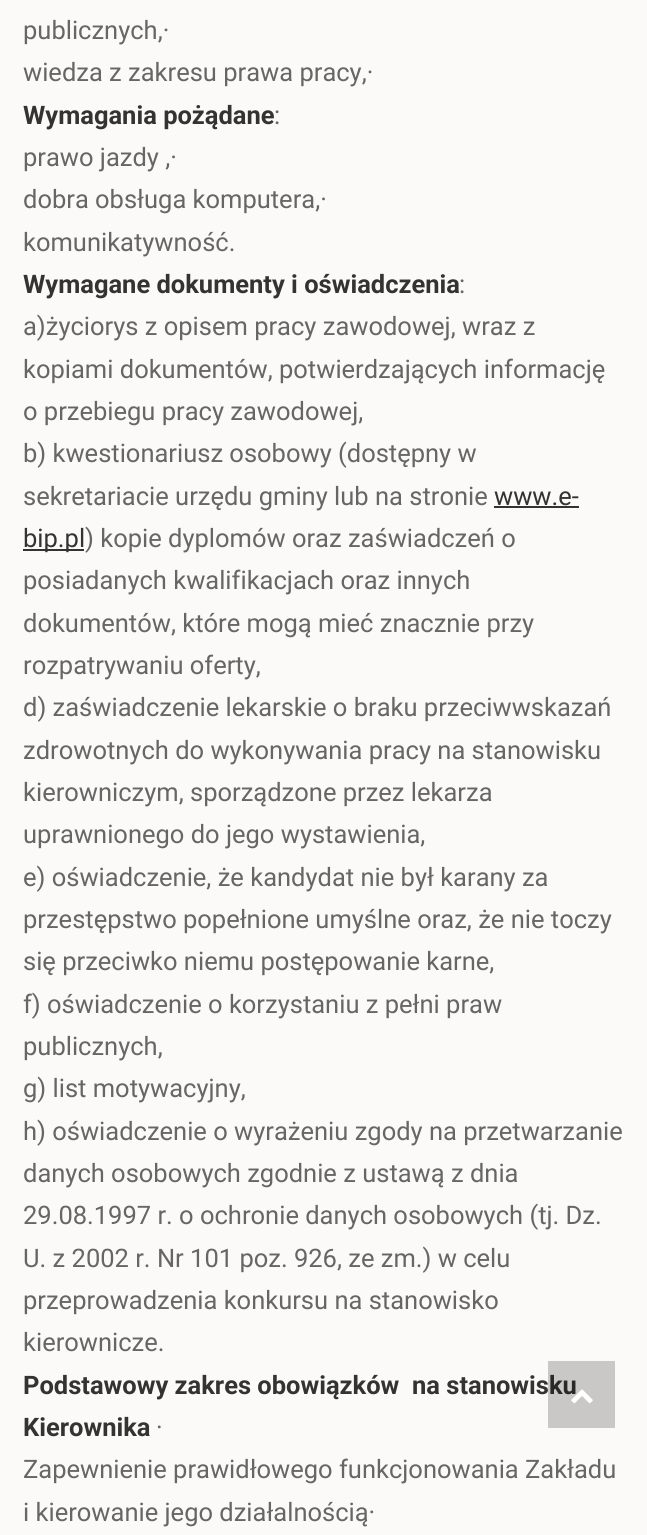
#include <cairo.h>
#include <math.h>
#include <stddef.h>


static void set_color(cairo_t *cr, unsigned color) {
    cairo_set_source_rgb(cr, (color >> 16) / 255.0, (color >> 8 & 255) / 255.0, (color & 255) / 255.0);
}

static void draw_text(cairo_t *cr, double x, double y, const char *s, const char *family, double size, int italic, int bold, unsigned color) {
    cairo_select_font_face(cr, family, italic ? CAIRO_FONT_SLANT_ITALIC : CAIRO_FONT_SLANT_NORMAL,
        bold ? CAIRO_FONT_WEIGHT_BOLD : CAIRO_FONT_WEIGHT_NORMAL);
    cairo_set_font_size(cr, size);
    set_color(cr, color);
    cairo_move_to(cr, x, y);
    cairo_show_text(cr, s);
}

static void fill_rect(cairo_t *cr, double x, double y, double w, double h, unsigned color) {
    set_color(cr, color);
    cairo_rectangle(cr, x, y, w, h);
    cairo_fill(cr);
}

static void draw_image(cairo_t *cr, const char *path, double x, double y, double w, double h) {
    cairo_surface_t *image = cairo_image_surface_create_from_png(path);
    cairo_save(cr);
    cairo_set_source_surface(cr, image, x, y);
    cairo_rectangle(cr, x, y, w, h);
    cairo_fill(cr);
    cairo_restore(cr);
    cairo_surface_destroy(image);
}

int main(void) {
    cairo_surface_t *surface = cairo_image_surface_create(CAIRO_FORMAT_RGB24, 647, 1535);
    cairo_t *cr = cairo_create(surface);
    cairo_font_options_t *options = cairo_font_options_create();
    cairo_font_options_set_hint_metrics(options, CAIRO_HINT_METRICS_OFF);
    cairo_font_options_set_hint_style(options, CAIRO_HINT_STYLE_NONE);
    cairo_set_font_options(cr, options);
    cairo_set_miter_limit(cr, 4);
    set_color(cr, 0xFBFAF9);
    cairo_paint(cr);
    draw_text(cr, 23, 39, "publicznych,·", "Roboto", 25.5, 0, 0, 0x666666);
    draw_text(cr, 23, 81, "wiedza z zakresu prawa pracy,·", "Roboto", 25.5, 0, 0, 0x666666);
    draw_text(cr, 23, 124, "Wymagania pożądane", "Roboto", 25.5, 0, 1, 0x333333);
    draw_text(cr, 274, 124, ":", "Roboto", 25.5, 0, 0, 0x666666);
    draw_text(cr, 23, 166, "prawo jazdy ,·", "Roboto", 25.5, 0, 0, 0x666666);
    draw_text(cr, 23, 208, "dobra obsługa komputera,·", "Roboto", 25.5, 0, 0, 0x666666);
    draw_text(cr, 23, 251, "komunikatywność.", "Roboto", 25.5, 0, 0, 0x666666);
    draw_text(cr, 23, 293, "Wymagane dokumenty i oświadczenia", "Roboto", 25.5, 0, 1, 0x333333);
    draw_text(cr, 459, 293, ":", "Roboto", 25.5, 0, 0, 0x666666);
    draw_text(cr, 23, 335, "a)życiorys z opisem pracy zawodowej, wraz z", "Roboto", 25.5, 0, 0, 0x666666);
    draw_text(cr, 23, 378, "kopiami dokumentów, potwierdzających informację", "Roboto", 25.5, 0, 0, 0x666666);
    draw_text(cr, 23, 420, "o przebiegu pracy zawodowej,", "Roboto", 25.5, 0, 0, 0x666666);
    draw_text(cr, 23, 462, "b) kwestionariusz osobowy (dostępny w", "Roboto", 25.5, 0, 0, 0x666666);
    draw_text(cr, 23, 505, "sekretariacie urzędu gminy lub na stronie", "Roboto", 25.5, 0, 0, 0x666666);
    draw_text(cr, 494, 505, "www.e-", "Roboto", 25.5, 0, 0, 0x333333);
    fill_rect(cr, 494, 506, 85, 2, 0x333333);
    fill_rect(cr, 23, 549, 61, 2, 0x333333);
    draw_text(cr, 23, 547, "bip.pl", "Roboto", 25.5, 0, 0, 0x333333);
    draw_text(cr, 85, 547, ") kopie dyplomów oraz zaświadczeń o", "Roboto", 25.5, 0, 0, 0x666666);
    draw_text(cr, 23, 589, "posiadanych kwalifikacjach oraz innych", "Roboto", 25.5, 0, 0, 0x666666);
    draw_text(cr, 23, 632, "dokumentów, które mogą mieć znacznie przy", "Roboto", 25.5, 0, 0, 0x666666);
    draw_text(cr, 23, 674, "rozpatrywaniu oferty,", "Roboto", 25.5, 0, 0, 0x666666);
    draw_text(cr, 23, 716, "d) zaświadczenie lekarskie o braku przeciwwskazań", "Roboto", 25.5, 0, 0, 0x666666);
    draw_text(cr, 23, 759, "zdrowotnych do wykonywania pracy na stanowisku", "Roboto", 25.5, 0, 0, 0x666666);
    draw_text(cr, 23, 801, "kierowniczym, sporządzone przez lekarza", "Roboto", 25.5, 0, 0, 0x666666);
    draw_text(cr, 23, 843, "uprawnionego do jego wystawienia,", "Roboto", 25.5, 0, 0, 0x666666);
    draw_text(cr, 23, 886, "e) oświadczenie, że kandydat nie był karany za", "Roboto", 25.5, 0, 0, 0x666666);
    draw_text(cr, 23, 928, "przestępstwo popełnione umyślne oraz, że nie toczy", "Roboto", 25.5, 0, 0, 0x666666);
    draw_text(cr, 23, 970, "się przeciwko niemu postępowanie karne,", "Roboto", 25.5, 0, 0, 0x666666);
    draw_text(cr, 23, 1013, "f) oświadczenie o korzystaniu z pełni praw", "Roboto", 25.5, 0, 0, 0x666666);
    draw_text(cr, 23, 1055, "publicznych,", "Roboto", 25.5, 0, 0, 0x666666);
    draw_text(cr, 23, 1097, "g) list motywacyjny,", "Roboto", 25.5, 0, 0, 0x666666);
    draw_text(cr, 23, 1140, "h) oświadczenie o wyrażeniu zgody na przetwarzanie", "Roboto", 25.5, 0, 0, 0x666666);
    draw_text(cr, 23, 1182, "danych osobowych zgodnie z ustawą z dnia", "Roboto", 25.5, 0, 0, 0x666666);
    draw_text(cr, 23, 1224, "29.08.1997 r. o ochronie danych osobowych (tj. Dz.", "Roboto", 25.5, 0, 0, 0x666666);
    draw_text(cr, 23, 1267, "U. z 2002 r. Nr 101 poz. 926, ze zm.) w celu", "Roboto", 25.5, 0, 0, 0x666666);
    draw_text(cr, 23, 1309, "przeprowadzenia konkursu na stanowisko", "Roboto", 25.5, 0, 0, 0x666666);
    draw_text(cr, 23, 1351, "kierownicze.", "Roboto", 25.5, 0, 0, 0x666666);
    draw_text(cr, 23, 1394, "Podstawowy zakres obowiązków  na stanowisku", "Roboto", 25.5, 0, 1, 0x333333);
    draw_text(cr, 23, 1436, "Kierownika", "Roboto", 25.5, 0, 1, 0x333333);
    draw_text(cr, 156, 1436, "·", "Roboto", 25.5, 0, 0, 0x666666);
    draw_text(cr, 23, 1478, "Zapewnienie prawidłowego funkcjonowania Zakładu", "Roboto", 25.5, 0, 0, 0x666666);
    draw_text(cr, 23, 1521, "i kierowanie jego działalnością·", "Roboto", 25.5, 0, 0, 0x666666);
    cairo_set_source_rgba(cr, 0, 0, 0, 0.2);
    cairo_rectangle(cr, 548, 1361, 67, 67);
    cairo_fill(cr);
    draw_image(cr, "assets/img1.png", 571, 1389, 22, 15);
    cairo_surface_write_to_png(surface, "output.png");
    cairo_font_options_destroy(options);
    cairo_destroy(cr);
    cairo_surface_destroy(surface);
    return 0;
}
